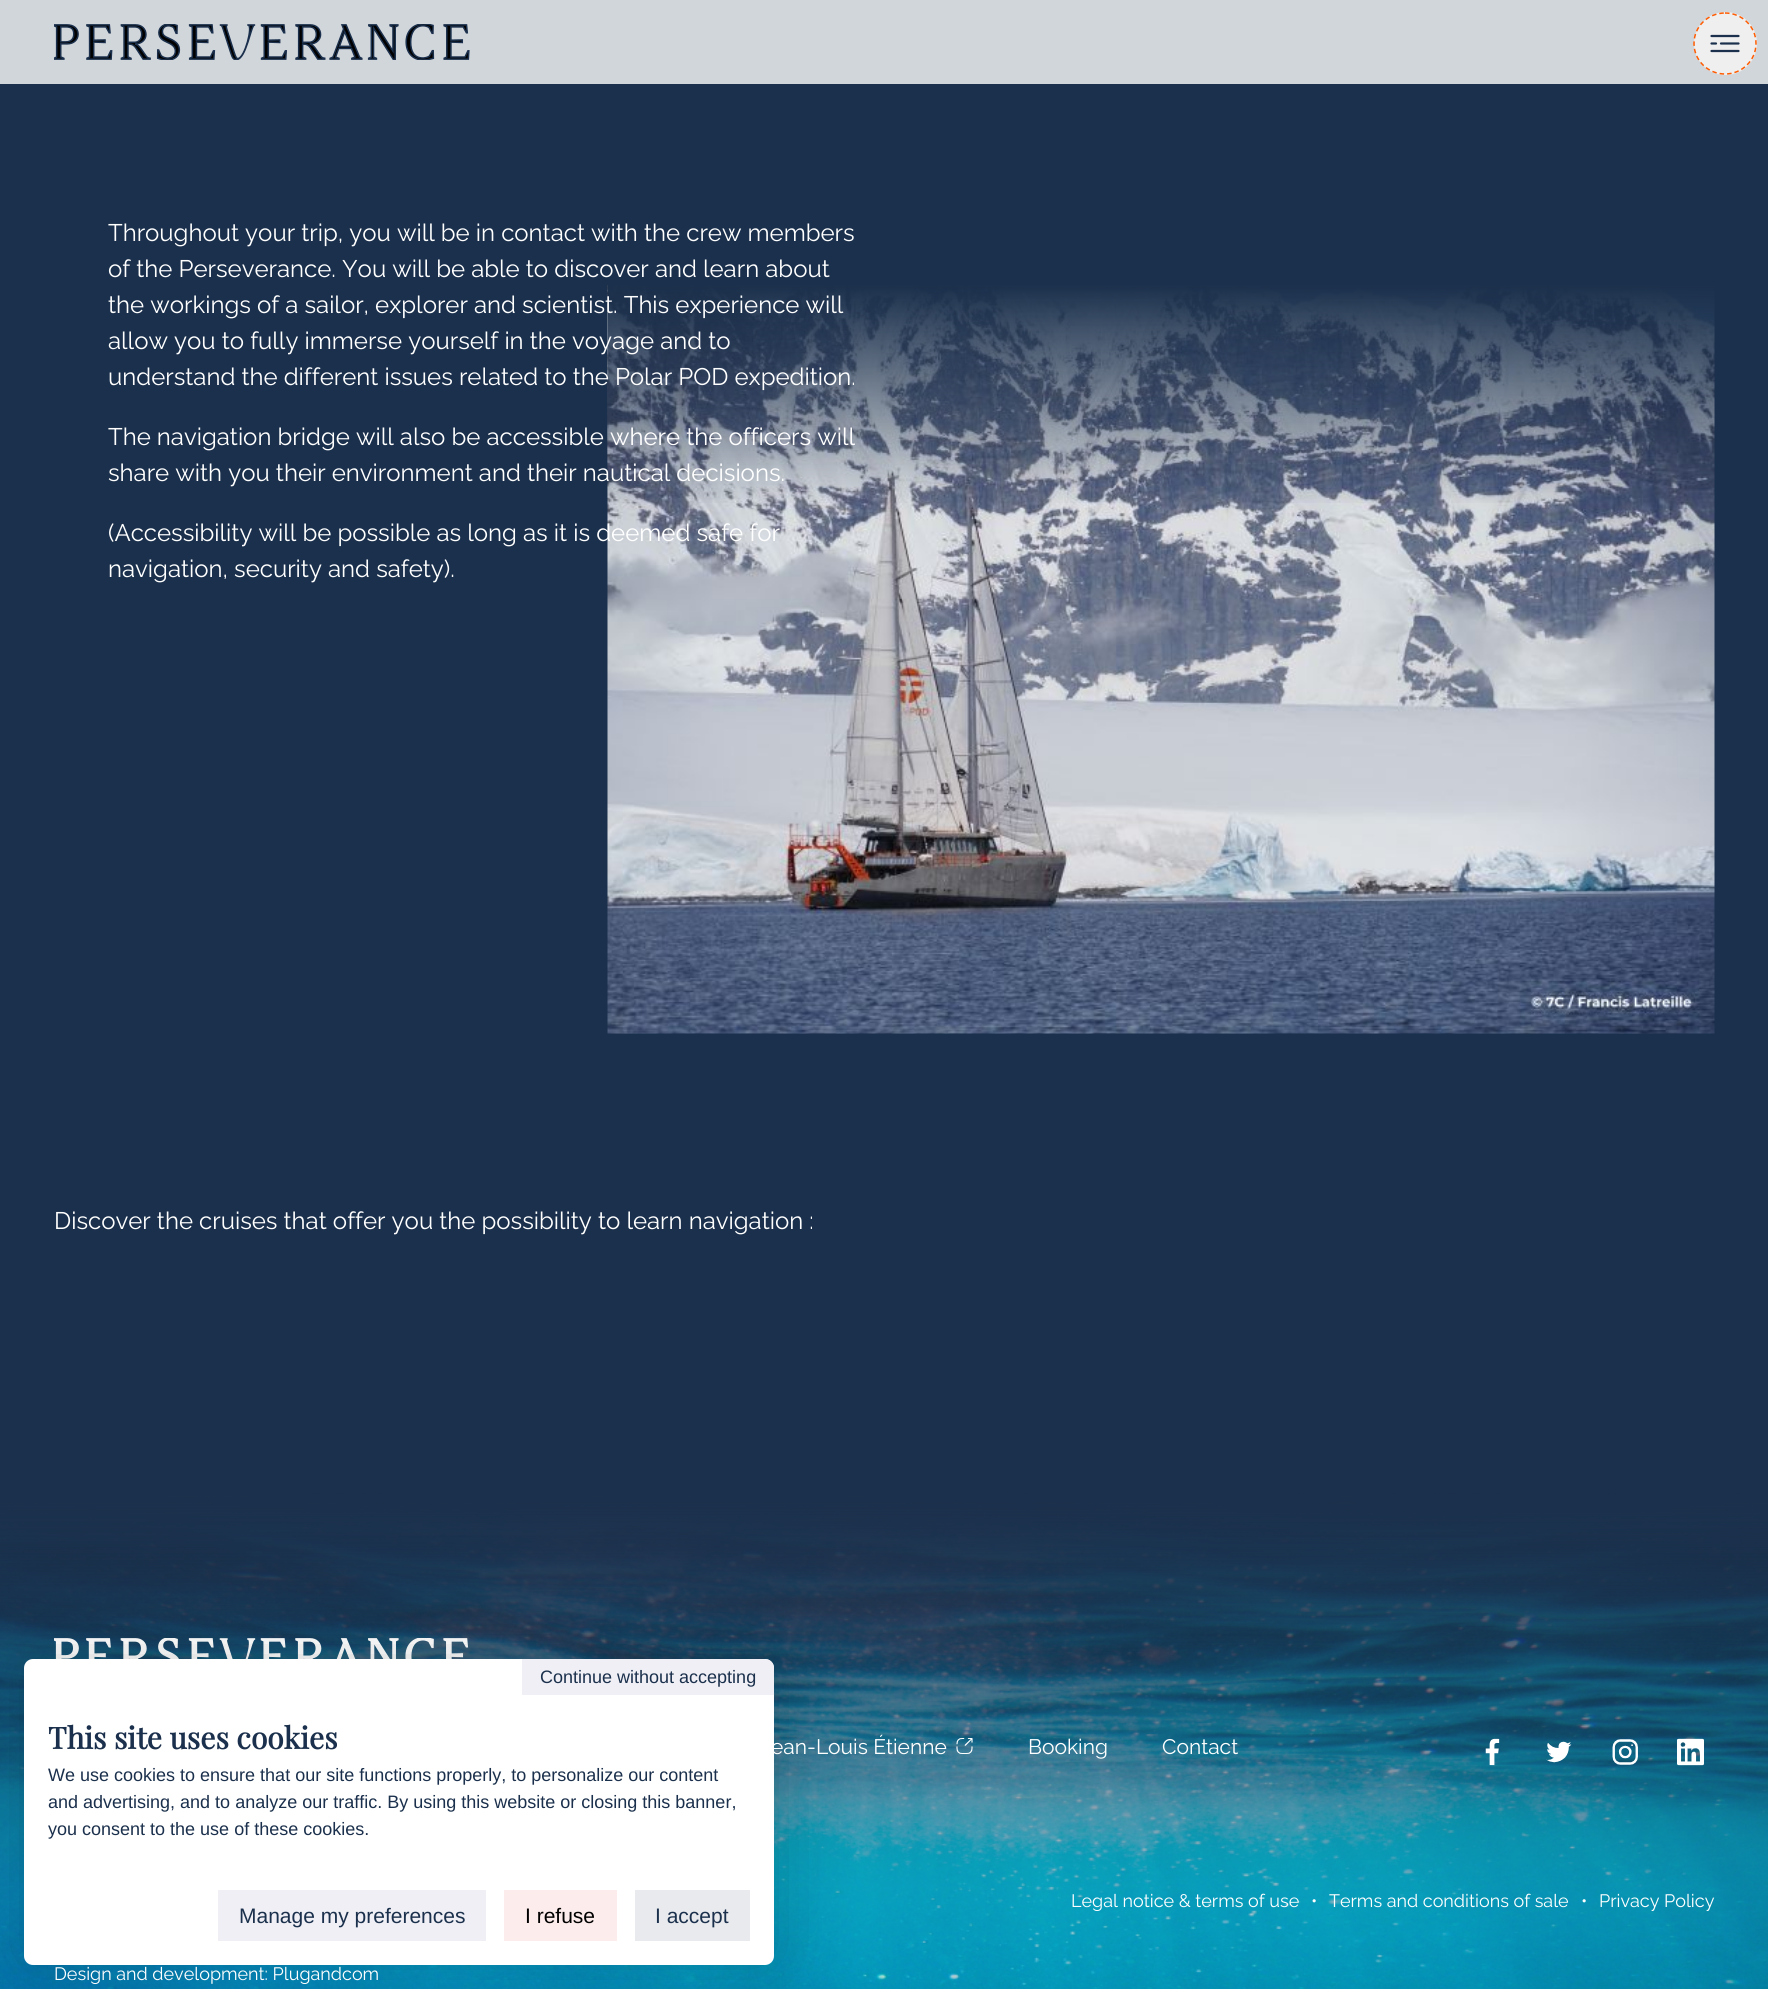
#include <cairo.h>
#include <math.h>
#include <stddef.h>


static void set_color(cairo_t *cr, unsigned color) {
    cairo_set_source_rgb(cr, (color >> 16) / 255.0, (color >> 8 & 255) / 255.0, (color & 255) / 255.0);
}

static void draw_text(cairo_t *cr, double x, double y, const char *s, const char *family, double size, int italic, int bold, unsigned color) {
    cairo_select_font_face(cr, family, italic ? CAIRO_FONT_SLANT_ITALIC : CAIRO_FONT_SLANT_NORMAL,
        bold ? CAIRO_FONT_WEIGHT_BOLD : CAIRO_FONT_WEIGHT_NORMAL);
    cairo_set_font_size(cr, size);
    set_color(cr, color);
    cairo_move_to(cr, x, y);
    cairo_show_text(cr, s);
}

static void fill_rect(cairo_t *cr, double x, double y, double w, double h, unsigned color) {
    set_color(cr, color);
    cairo_rectangle(cr, x, y, w, h);
    cairo_fill(cr);
}

static void rounded_rect(cairo_t *cr, double x, double y, double w, double h, double r) {
    cairo_new_sub_path(cr);
    cairo_arc(cr, x + w - r, y + h - r, r, 0, M_PI / 2);
    cairo_arc(cr, x + r, y + h - r, r, M_PI / 2, M_PI);
    cairo_arc(cr, x + r, y + r, r, M_PI, 1.5 * M_PI);
    cairo_arc(cr, x + w - r, y + r, r, 1.5 * M_PI, 2 * M_PI);
    cairo_close_path(cr);
}

static void draw_shadow(cairo_t *cr, double x, double y, double w, double h, double r, double blur, double alpha) {
    cairo_push_group_with_content(cr, CAIRO_CONTENT_ALPHA);
    cairo_set_operator(cr, CAIRO_OPERATOR_SOURCE);
    for (int i = 15; i >= -15 && fmin(w, h) + blur * i / 3 > 0; i -= 2) {
        double e = blur * i / 6;
        cairo_set_source_rgba(cr, 0, 0, 0, alpha * erfc((i - 1) / 8.5) / 2);
        rounded_rect(cr, x - e, y - e, w + 2 * e, h + 2 * e, fmax(0, fmin(r + e + blur * .6, fmin(w, h) / 2 + e)));
        cairo_fill(cr);
    }
    cairo_pattern_t *soft = cairo_pop_group(cr);
    cairo_mask(cr, soft);
    cairo_pattern_destroy(soft);
}

static void draw_image(cairo_t *cr, const char *path, double x, double y, double w, double h) {
    cairo_surface_t *image = cairo_image_surface_create_from_png(path);
    cairo_save(cr);
    cairo_set_source_surface(cr, image, x, y);
    cairo_rectangle(cr, x, y, w, h);
    cairo_fill(cr);
    cairo_restore(cr);
    cairo_surface_destroy(image);
}

int main(void) {
    cairo_surface_t *surface = cairo_image_surface_create(CAIRO_FORMAT_RGB24, 1768, 1989);
    cairo_t *cr = cairo_create(surface);
    cairo_font_options_t *options = cairo_font_options_create();
    cairo_font_options_set_hint_metrics(options, CAIRO_HINT_METRICS_OFF);
    cairo_font_options_set_hint_style(options, CAIRO_HINT_STYLE_NONE);
    cairo_set_font_options(cr, options);
    cairo_set_miter_limit(cr, 4);
    cairo_pattern_t *gradient;
    set_color(cr, 0x1B304C);
    cairo_paint(cr);
    cairo_set_source_rgba(cr, 1, 1, 1, 0.8);
    cairo_rectangle(cr, 0, 0, 1768, 84);
    cairo_fill(cr);
    draw_image(cr, "assets/img1.png", 54, 24, 416, 36);
    set_color(cr, 0xEFEFEF);
    cairo_arc(cr, 1725.5, 43.5, 31.5, 0, 2 * M_PI);
    cairo_fill(cr);
    cairo_new_path(cr);
    cairo_move_to(cr, 1725, 13);
    cairo_curve_to(cr, 1742, 13, 1756, 26.5, 1756, 43.5);
    cairo_curve_to(cr, 1756, 60.5, 1742, 74, 1725, 74);
    cairo_curve_to(cr, 1708, 74, 1694, 60.5, 1694, 43.5);
    cairo_curve_to(cr, 1694, 26.5, 1708, 13, 1725, 13);
    cairo_close_path(cr);
    set_color(cr, 0xFF5B00);
    cairo_set_line_width(cr, 1.5);
    cairo_set_dash(cr, (double[]){4.5, 3}, 2, 0);
    cairo_stroke(cr);
    cairo_new_path(cr);
    cairo_move_to(cr, 1711.5, 36);
    cairo_line_to(cr, 1738.5, 36);
    cairo_move_to(cr, 1711.5, 43.5);
    cairo_line_to(cr, 1716, 43.5);
    cairo_move_to(cr, 1721, 43.5);
    cairo_line_to(cr, 1738.5, 43.5);
    cairo_move_to(cr, 1711.5, 51);
    cairo_line_to(cr, 1738.5, 51);
    set_color(cr, 0x1B304C);
    cairo_set_line_width(cr, 2.2);
    cairo_set_line_cap(cr, CAIRO_LINE_CAP_ROUND);
    cairo_set_dash(cr, NULL, 0, 0);
    cairo_stroke(cr);
    draw_text(cr, 108, 241, "Throughout your trip, you will be in contact with the crew members", "Raleway", 24, 0, 0, 0xFFFFFF);
    draw_text(cr, 108, 277, "of the Perseverance. You will be able to discover and learn about", "Raleway", 24, 0, 0, 0xFFFFFF);
    draw_image(cr, "assets/img2.png", 607, 285, 1108, 749);
    gradient = cairo_pattern_create_linear(1161, 285, 1161, 510);
    cairo_pattern_add_color_stop_rgba(gradient, 0, 0.106, 0.188, 0.298, 1);
    cairo_pattern_add_color_stop_rgba(gradient, 0.99, 0.106, 0.188, 0.298, 0);
    cairo_set_source(cr, gradient);
    cairo_pattern_destroy(gradient);
    cairo_rectangle(cr, 608, 285, 1107, 218);
    cairo_fill(cr);
    draw_text(cr, 108, 313, "the workings of a sailor, explorer and scientist. This experience will", "Raleway", 24, 0, 0, 0xFFFFFF);
    draw_text(cr, 108, 349, "allow you to fully immerse yourself in the voyage and to", "Raleway", 24, 0, 0, 0xFFFFFF);
    draw_text(cr, 108, 385, "understand the different issues related to the Polar POD expedition.", "Raleway", 24, 0, 0, 0xFFFFFF);
    draw_text(cr, 108, 445, "The navigation bridge will also be accessible where the officers will", "Raleway", 24, 0, 0, 0xFFFFFF);
    draw_text(cr, 108, 481, "share with you their environment and their nautical decisions.", "Raleway", 24, 0, 0, 0xFFFFFF);
    draw_text(cr, 108, 541, "(Accessibility will be possible as long as it is deemed safe for", "Raleway", 24, 0, 0, 0xFFFFFF);
    draw_text(cr, 108, 577, "navigation, security and safety).", "Raleway", 24, 0, 0, 0xFFFFFF);
    draw_text(cr, 54, 1229, "Discover the cruises that offer you the possibility to learn navigation :", "Raleway", 24, 0, 0, 0xFFFFFF);
    draw_image(cr, "assets/img3.png", 0, 1488, 1768, 501);
    draw_image(cr, "assets/img4.png", 54, 1638, 415, 21);
    set_color(cr, 0x000000);
    draw_shadow(cr, 24, 1659, 750, 306, 9, 30, 0.2);
    set_color(cr, 0xFFFFFF);
    rounded_rect(cr, 24, 1659, 750, 306, 9);
    cairo_fill(cr);
    set_color(cr, 0xEFEFF5);
    cairo_new_path(cr);
    cairo_move_to(cr, 522, 1659);
    cairo_line_to(cr, 765, 1659);
    cairo_curve_to(cr, 770, 1659, 774, 1663, 774, 1668);
    cairo_line_to(cr, 774, 1695);
    cairo_line_to(cr, 522, 1695);
    cairo_close_path(cr);
    cairo_fill(cr);
    draw_text(cr, 540, 1683, "Continue without accepting", "Liberation Sans", 18, 0, 0, 0x1B304C);
    draw_text(cr, 48, 1749, "This site uses cookies", "Playfair Display", 30, 0, 1, 0x1B304C);
    draw_text(cr, 48, 1781, "We use cookies to ensure that our site functions properly, to personalize our content", "Liberation Sans", 18, 0, 0, 0x1B304C);
    draw_text(cr, 48, 1808, "and advertising, and to analyze our traffic. By using this website or closing this banner,", "Liberation Sans", 18, 0, 0, 0x1B304C);
    draw_text(cr, 48, 1835, "you consent to the use of these cookies.", "Liberation Sans", 18, 0, 0, 0x1B304C);
    fill_rect(cr, 218, 1890, 268, 51, 0xEFEFF5);
    draw_text(cr, 239, 1923, "Manage my preferences", "Liberation Sans", 21, 0, 0, 0x1B304C);
    fill_rect(cr, 504, 1890, 113, 51, 0xFCECEB);
    draw_text(cr, 525, 1923, "I refuse", "Liberation Sans", 21, 0, 0, 0x000000);
    fill_rect(cr, 635, 1890, 115, 51, 0xE8EAED);
    draw_text(cr, 655, 1923, "I accept", "Liberation Sans", 21, 0, 0, 0x1B304C);
    draw_text(cr, 771, 1754, "ean-Louis Étienne", "Raleway", 21, 0, 0, 0xFFFFFF);
    draw_image(cr, "assets/img5.png", 956, 1738, 17, 16);
    draw_text(cr, 1028, 1754, "Booking", "Raleway", 21, 0, 0, 0xFFFFFF);
    draw_text(cr, 1162, 1754, "Contact", "Raleway", 21, 0, 0, 0xFFFFFF);
    draw_image(cr, "assets/img6.png", 1485, 1738, 15, 28);
    draw_image(cr, "assets/img7.png", 1546, 1741, 26, 22);
    draw_image(cr, "assets/img8.png", 1612, 1739, 26, 26);
    draw_image(cr, "assets/img9.png", 1677, 1738, 27, 28);
    draw_text(cr, 1071, 1907, "Legal notice & terms of use", "Raleway", 18, 0, 0, 0xFFFFFF);
    draw_text(cr, 1311, 1907, "•", "Raleway", 18, 0, 0, 0xFFFFFF);
    draw_text(cr, 1329, 1907, "Terms and conditions of sale", "Raleway", 18, 0, 0, 0xFFFFFF);
    draw_text(cr, 1581, 1907, "•", "Raleway", 18, 0, 0, 0xFFFFFF);
    draw_text(cr, 1599, 1907, "Privacy Policy", "Raleway", 18, 0, 0, 0xFFFFFF);
    draw_text(cr, 54, 1980, "Design and development: Plugandcom", "Raleway", 18, 0, 0, 0xFFFFFF);
    cairo_surface_write_to_png(surface, "output.png");
    cairo_font_options_destroy(options);
    cairo_destroy(cr);
    cairo_surface_destroy(surface);
    return 0;
}
